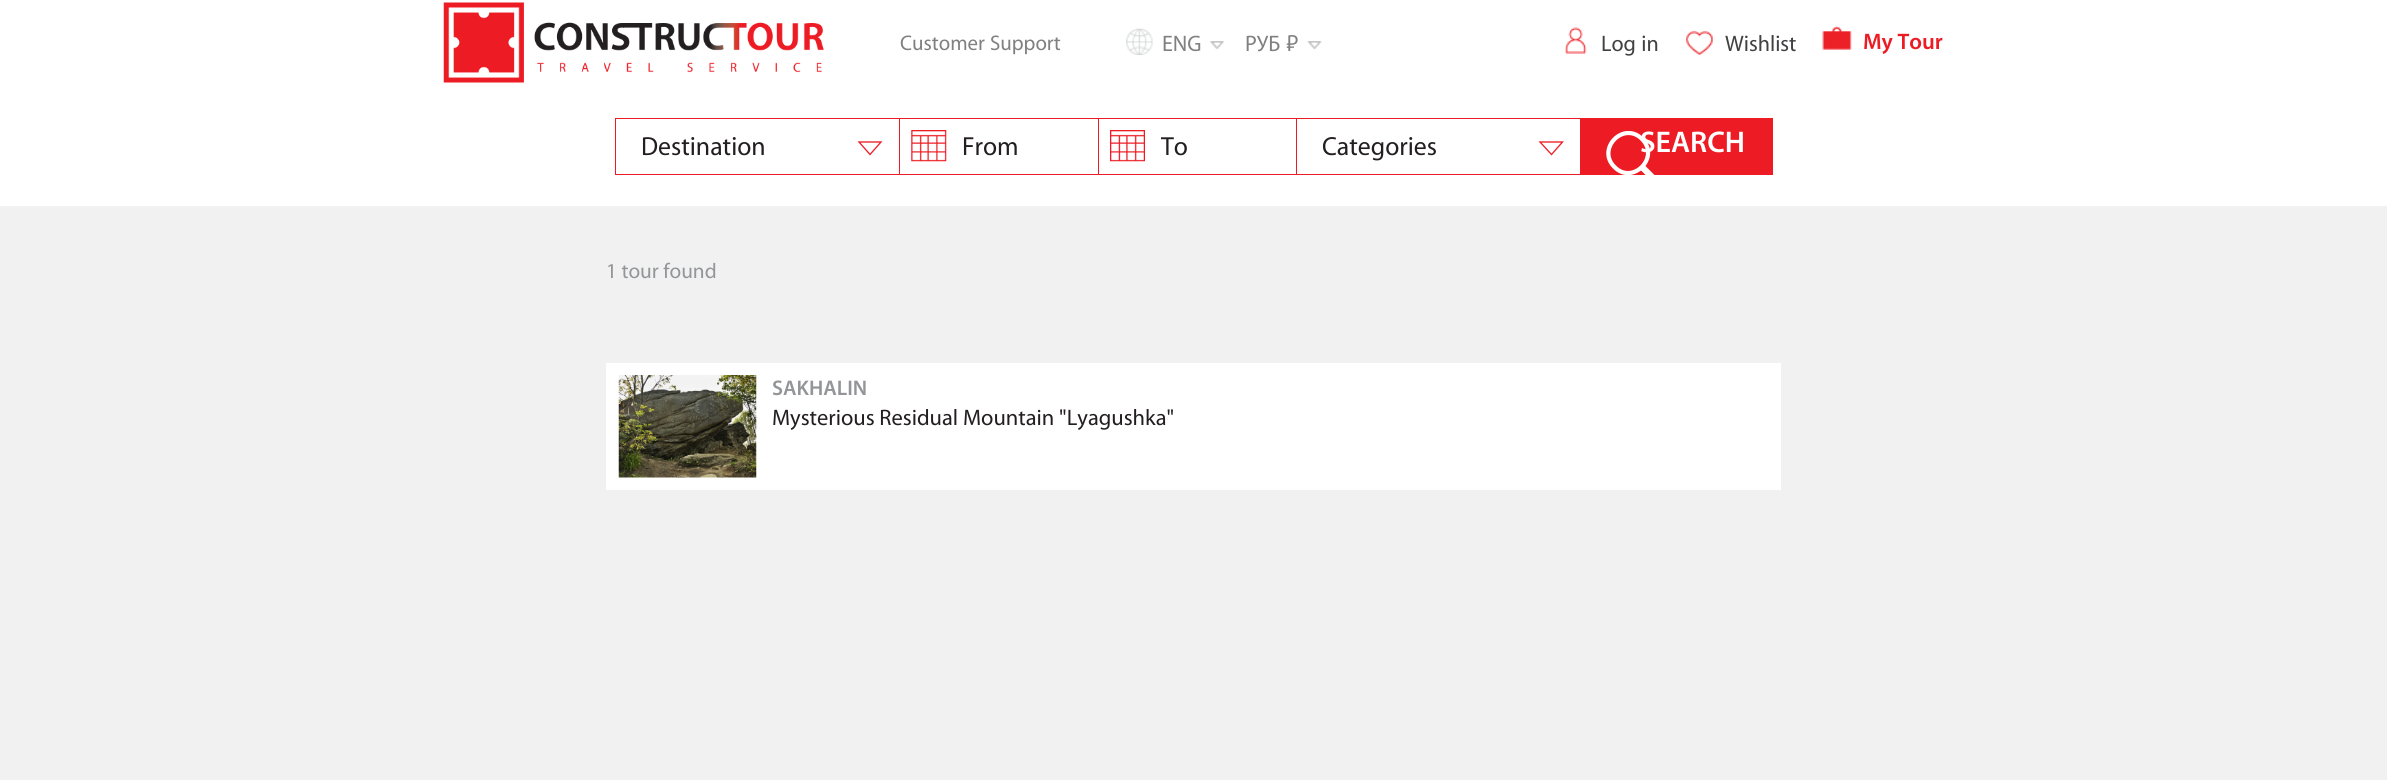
#include <cairo.h>
#include <math.h>
#include <stddef.h>


static void set_color(cairo_t *cr, unsigned color) {
    cairo_set_source_rgb(cr, (color >> 16) / 255.0, (color >> 8 & 255) / 255.0, (color & 255) / 255.0);
}

static void draw_text(cairo_t *cr, double x, double y, const char *s, const char *family, double size, int italic, int bold, unsigned color) {
    cairo_select_font_face(cr, family, italic ? CAIRO_FONT_SLANT_ITALIC : CAIRO_FONT_SLANT_NORMAL,
        bold ? CAIRO_FONT_WEIGHT_BOLD : CAIRO_FONT_WEIGHT_NORMAL);
    cairo_set_font_size(cr, size);
    set_color(cr, color);
    cairo_move_to(cr, x, y);
    cairo_show_text(cr, s);
}

static void fill_rect(cairo_t *cr, double x, double y, double w, double h, unsigned color) {
    set_color(cr, color);
    cairo_rectangle(cr, x, y, w, h);
    cairo_fill(cr);
}

static void draw_image(cairo_t *cr, const char *path, double x, double y, double w, double h) {
    cairo_surface_t *image = cairo_image_surface_create_from_png(path);
    cairo_save(cr);
    cairo_set_source_surface(cr, image, x, y);
    cairo_rectangle(cr, x, y, w, h);
    cairo_fill(cr);
    cairo_restore(cr);
    cairo_surface_destroy(image);
}

int main(void) {
    cairo_surface_t *surface = cairo_image_surface_create(CAIRO_FORMAT_RGB24, 2387, 780);
    cairo_t *cr = cairo_create(surface);
    cairo_font_options_t *options = cairo_font_options_create();
    cairo_font_options_set_hint_metrics(options, CAIRO_HINT_METRICS_OFF);
    cairo_font_options_set_hint_style(options, CAIRO_HINT_STYLE_NONE);
    cairo_set_font_options(cr, options);
    cairo_set_miter_limit(cr, 4);
    set_color(cr, 0xFFFFFF);
    cairo_paint(cr);
    draw_image(cr, "assets/img1.png", 443, 2, 381, 81);
    draw_text(cr, 900, 50, "Customer Support", "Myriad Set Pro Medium", 21.25, 0, 0, 0x808080);
    draw_image(cr, "assets/img2.png", 1126, 28, 27, 27);
    draw_text(cr, 1162, 51, "ENG", "Myriad Set Pro Medium", 22.5, 0, 0, 0x808080);
    draw_image(cr, "assets/img3.png", 1210, 41, 14, 8);
    draw_text(cr, 1245, 51, "РУБ", "Myriad Set Pro Medium", 22.5, 0, 0, 0x808080);
    draw_text(cr, 1286, 51, "₽", "PT Sans", 22.5, 0, 0, 0x808080);
    draw_image(cr, "assets/img4.png", 1307, 41, 15, 9);
    draw_image(cr, "assets/img5.png", 1565, 27, 22, 27);
    draw_text(cr, 1601, 51, "Log in", "Myriad Set Pro Medium", 22.5, 0, 0, 0x414042);
    draw_image(cr, "assets/img6.png", 1686, 31, 27, 24);
    draw_text(cr, 1725, 51, "Wishlist", "Myriad Set Pro Medium", 22.5, 0, 0, 0x414042);
    draw_image(cr, "assets/img7.png", 1822, 26, 30, 24);
    draw_text(cr, 1863, 49, "My Tour", "Myriad SemiBold", 22.5, 0, 0, 0xED1C24);
    cairo_new_path(cr);
    cairo_move_to(cr, 859, 142);
    cairo_line_to(cr, 881, 142);
    cairo_line_to(cr, 870, 154.5);
    cairo_close_path(cr);
    cairo_set_line_width(cr, 1.3);
    cairo_stroke(cr);
    draw_image(cr, "assets/img8.png", 911, 130, 36, 32);
    cairo_rectangle(cr, 899.5, 118.5, 199, 56);
    cairo_set_line_width(cr, 1);
    cairo_stroke(cr);
    cairo_rectangle(cr, 615.5, 118.5, 284, 56);
    cairo_stroke(cr);
    draw_text(cr, 641, 155, "Destination", "Myriad Set Pro Medium", 26.25, 0, 0, 0x231F20);
    draw_text(cr, 962, 155, "From", "Myriad Set Pro Medium", 26.25, 0, 0, 0x231F20);
    draw_image(cr, "assets/img9.png", 1110, 130, 35, 32);
    cairo_rectangle(cr, 1098.5, 118.5, 199, 56);
    set_color(cr, 0xED1C24);
    cairo_stroke(cr);
    draw_text(cr, 1161, 155, "To", "Myriad Set Pro Medium", 26.25, 0, 0, 0x231F20);
    fill_rect(cr, 1297, 119, 1, 55, 0xFFFFFF);
    cairo_new_path(cr);
    cairo_move_to(cr, 1540, 142);
    cairo_line_to(cr, 1562.5, 142);
    cairo_line_to(cr, 1551.5, 154.5);
    cairo_close_path(cr);
    set_color(cr, 0xED1C24);
    cairo_set_line_width(cr, 1.3);
    cairo_stroke(cr);
    cairo_rectangle(cr, 1296.5, 118.5, 284, 56);
    cairo_set_line_width(cr, 1);
    cairo_stroke(cr);
    draw_text(cr, 1322, 155, "Categories", "Myriad Set Pro Medium", 26.25, 0, 0, 0x231F20);
    fill_rect(cr, 1581, 118, 192, 57, 0xED1C24);
    cairo_save(cr);
    cairo_rectangle(cr, 1606, 131, 55, 44);
    cairo_clip(cr);
    cairo_new_path(cr);
    cairo_move_to(cr, 1614.5, 167);
    cairo_curve_to(cr, 1632.5, 185.5, 1660.5, 157.5, 1642, 139);
    cairo_curve_to(cr, 1623.5, 120.5, 1596, 149, 1614.5, 167);
    cairo_close_path(cr);
    set_color(cr, 0xFFFFFF);
    cairo_set_line_width(cr, 4.2);
    cairo_stroke(cr);
    cairo_new_path(cr);
    cairo_move_to(cr, 1642.5, 167.5);
    cairo_line_to(cr, 1659, 184);
    cairo_set_line_width(cr, 6.3);
    cairo_stroke(cr);
    cairo_restore(cr);
    draw_text(cr, 1640, 152, "SEARCH", "Myriad SemiBold", 30, 0, 0, 0xFFFFFF);
    fill_rect(cr, 0, 206, 2387, 574, 0xF1F1F1);
    draw_text(cr, 606, 278, "1 tour found", "Myriad", 21.25, 0, 0, 0x939598);
    fill_rect(cr, 606, 363, 1175, 127, 0xFFFFFF);
    draw_image(cr, "assets/img10.png", 618, 375, 139, 103);
    draw_text(cr, 772, 395, "SAKHALIN", "Myriad SemiBold", 21.25, 0, 0, 0x939598);
    draw_text(cr, 772, 425, "Mysterious Residual Mountain \"Lyagushka\"", "Myriad", 22.5, 0, 0, 0x231F20);
    cairo_surface_write_to_png(surface, "output.png");
    cairo_font_options_destroy(options);
    cairo_destroy(cr);
    cairo_surface_destroy(surface);
    return 0;
}
